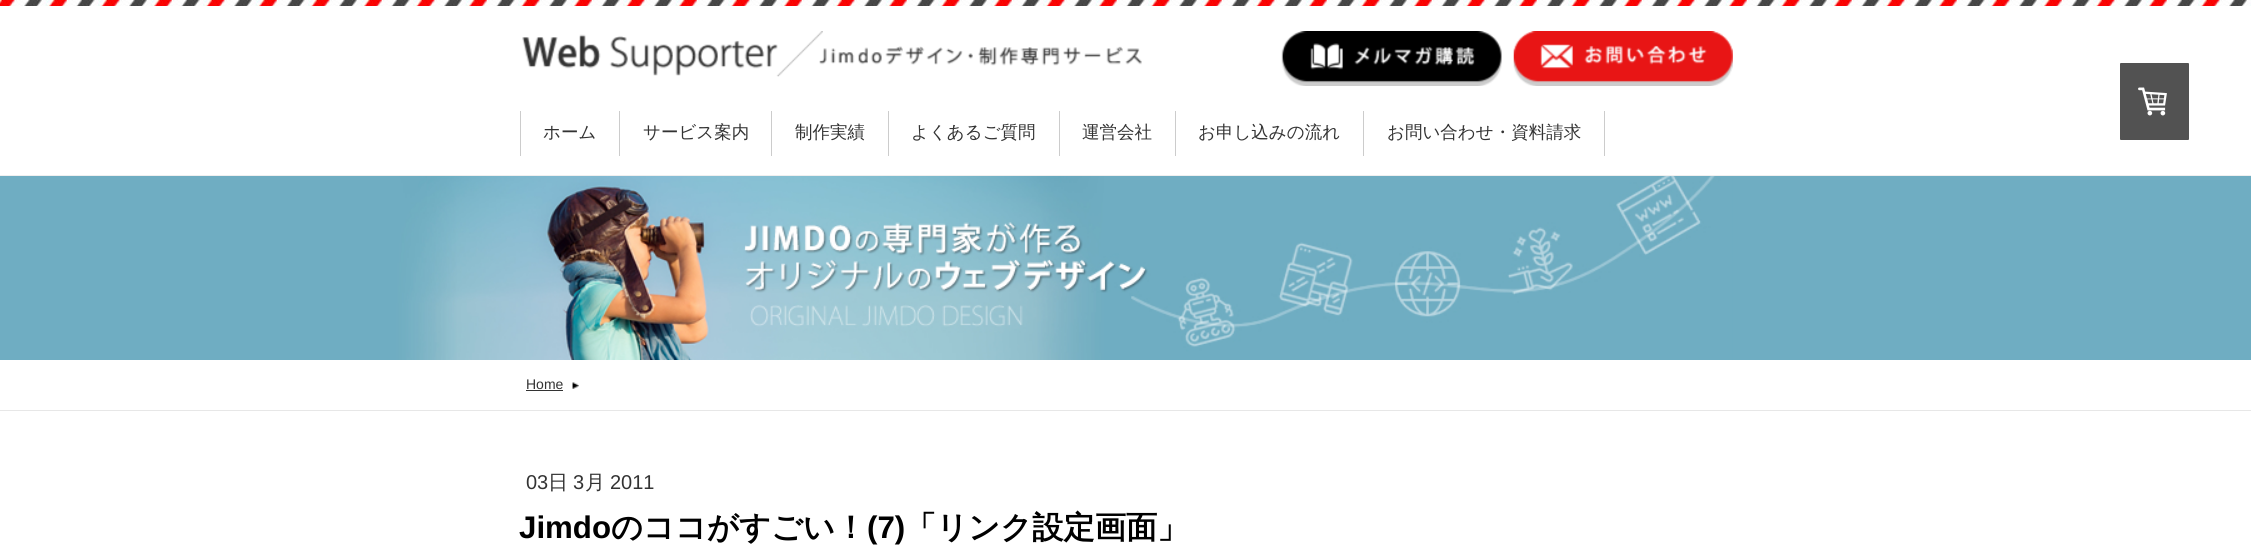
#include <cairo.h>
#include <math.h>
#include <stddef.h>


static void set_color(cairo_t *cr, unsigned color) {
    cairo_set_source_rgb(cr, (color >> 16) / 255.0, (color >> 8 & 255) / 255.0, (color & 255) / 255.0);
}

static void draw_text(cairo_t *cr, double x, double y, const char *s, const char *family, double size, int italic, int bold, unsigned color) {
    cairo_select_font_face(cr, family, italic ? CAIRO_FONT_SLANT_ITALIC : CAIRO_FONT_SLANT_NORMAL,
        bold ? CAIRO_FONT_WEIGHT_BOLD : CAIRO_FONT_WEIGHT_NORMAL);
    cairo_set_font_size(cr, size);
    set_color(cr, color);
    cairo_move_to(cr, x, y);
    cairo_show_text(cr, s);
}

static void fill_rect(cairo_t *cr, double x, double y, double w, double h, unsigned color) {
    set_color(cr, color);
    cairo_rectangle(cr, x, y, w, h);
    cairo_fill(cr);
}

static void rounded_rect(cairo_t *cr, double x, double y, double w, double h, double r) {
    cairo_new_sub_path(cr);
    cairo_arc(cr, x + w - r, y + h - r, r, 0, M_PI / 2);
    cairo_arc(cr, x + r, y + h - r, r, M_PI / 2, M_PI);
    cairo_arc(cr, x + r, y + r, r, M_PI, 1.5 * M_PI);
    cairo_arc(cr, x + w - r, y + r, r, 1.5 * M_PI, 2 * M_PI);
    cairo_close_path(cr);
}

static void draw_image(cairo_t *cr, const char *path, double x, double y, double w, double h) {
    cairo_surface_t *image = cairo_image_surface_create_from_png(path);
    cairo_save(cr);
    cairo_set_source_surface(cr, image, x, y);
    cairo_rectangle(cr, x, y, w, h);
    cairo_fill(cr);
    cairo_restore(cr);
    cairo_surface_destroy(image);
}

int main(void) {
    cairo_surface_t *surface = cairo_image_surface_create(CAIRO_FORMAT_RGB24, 2251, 560);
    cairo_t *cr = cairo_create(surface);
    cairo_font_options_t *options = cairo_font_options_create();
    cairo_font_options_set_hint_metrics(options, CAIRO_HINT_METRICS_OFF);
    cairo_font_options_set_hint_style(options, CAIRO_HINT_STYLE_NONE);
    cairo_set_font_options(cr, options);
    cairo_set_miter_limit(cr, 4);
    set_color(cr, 0xFFFFFF);
    cairo_paint(cr);
    draw_image(cr, "assets/img1.png", 0, 0, 2251, 6);
    fill_rect(cr, 0, 175, 2251, 1, 0xEFEFEF);
    draw_image(cr, "assets/img2.png", 522, 31, 620, 46);
    draw_image(cr, "assets/img3.png", 1281, 31, 221, 55);
    draw_image(cr, "assets/img4.png", 1513, 31, 220, 55);
    fill_rect(cr, 520, 111, 1, 45, 0xCCCCCC);
    draw_text(cr, 543, 138, "ホーム", "WenQuanYi Zen Hei Medium", 17.5, 0, 0, 0x333333);
    fill_rect(cr, 619, 111, 1, 45, 0xCCCCCC);
    draw_text(cr, 643, 138, "サービス案内", "WenQuanYi Zen Hei Medium", 17.5, 0, 0, 0x333333);
    fill_rect(cr, 771, 111, 1, 45, 0xCCCCCC);
    draw_text(cr, 795, 138, "制作実績", "WenQuanYi Zen Hei Medium", 17.5, 0, 0, 0x333333);
    fill_rect(cr, 888, 111, 1, 45, 0xCCCCCC);
    draw_text(cr, 911, 138, "よくあるご質問", "WenQuanYi Zen Hei Medium", 17.5, 0, 0, 0x333333);
    fill_rect(cr, 1059, 111, 1, 45, 0xCCCCCC);
    draw_text(cr, 1082, 138, "運営会社", "WenQuanYi Zen Hei Medium", 17.5, 0, 0, 0x333333);
    fill_rect(cr, 1175, 111, 1, 45, 0xCCCCCC);
    draw_text(cr, 1198, 138, "お申し込みの流れ", "WenQuanYi Zen Hei Medium", 17.5, 0, 0, 0x333333);
    fill_rect(cr, 1604, 111, 1, 45, 0xCCCCCC);
    fill_rect(cr, 1363, 111, 1, 45, 0xCCCCCC);
    draw_text(cr, 1387, 138, "お問い合わせ・資料請求", "WenQuanYi Zen Hei Medium", 17.5, 0, 0, 0x333333);
    draw_image(cr, "assets/img5.png", 0, 176, 2251, 184);
    draw_image(cr, "assets/img6.png", 520, 176, 1213, 184);
    fill_rect(cr, 0, 410, 2251, 1, 0xE7E7E7);
    draw_image(cr, "assets/img7.png", 572, 382, 7, 7);
    draw_text(cr, 526, 389, "Home", "Liberation Sans", 14, 0, 0, 0x333333);
    fill_rect(cr, 526, 390, 37, 1, 0x333333);
    set_color(cr, 0x525252);
    rounded_rect(cr, 2120, 63, 69, 77, 1);
    cairo_fill(cr);
    draw_image(cr, "assets/img8.png", 2138, 87, 29, 29);
    draw_text(cr, 526, 489, "03", "Liberation Sans", 20, 0, 0, 0x333333);
    draw_text(cr, 548, 489, "日", "WenQuanYi Zen Hei Medium", 20, 0, 0, 0x333333);
    draw_text(cr, 573, 489, "3", "Liberation Sans", 20, 0, 0, 0x333333);
    draw_text(cr, 585, 489, "月", "WenQuanYi Zen Hei Medium", 20, 0, 0, 0x333333);
    draw_text(cr, 610, 489, "2011", "Liberation Sans", 20, 0, 0, 0x333333);
    draw_text(cr, 519, 538, "Jimdo", "Liberation Sans", 31.25, 0, 1, 0x000000);
    draw_text(cr, 611, 538, "のココがすごい！", "WenQuanYi Zen Hei", 31.25, 0, 1, 0x000000);
    draw_text(cr, 867, 538, "(7)", "Liberation Sans", 31.25, 0, 1, 0x000000);
    draw_text(cr, 905, 538, "「リンク設定画面」", "WenQuanYi Zen Hei", 31.25, 0, 1, 0x000000);
    cairo_surface_write_to_png(surface, "output.png");
    cairo_font_options_destroy(options);
    cairo_destroy(cr);
    cairo_surface_destroy(surface);
    return 0;
}
